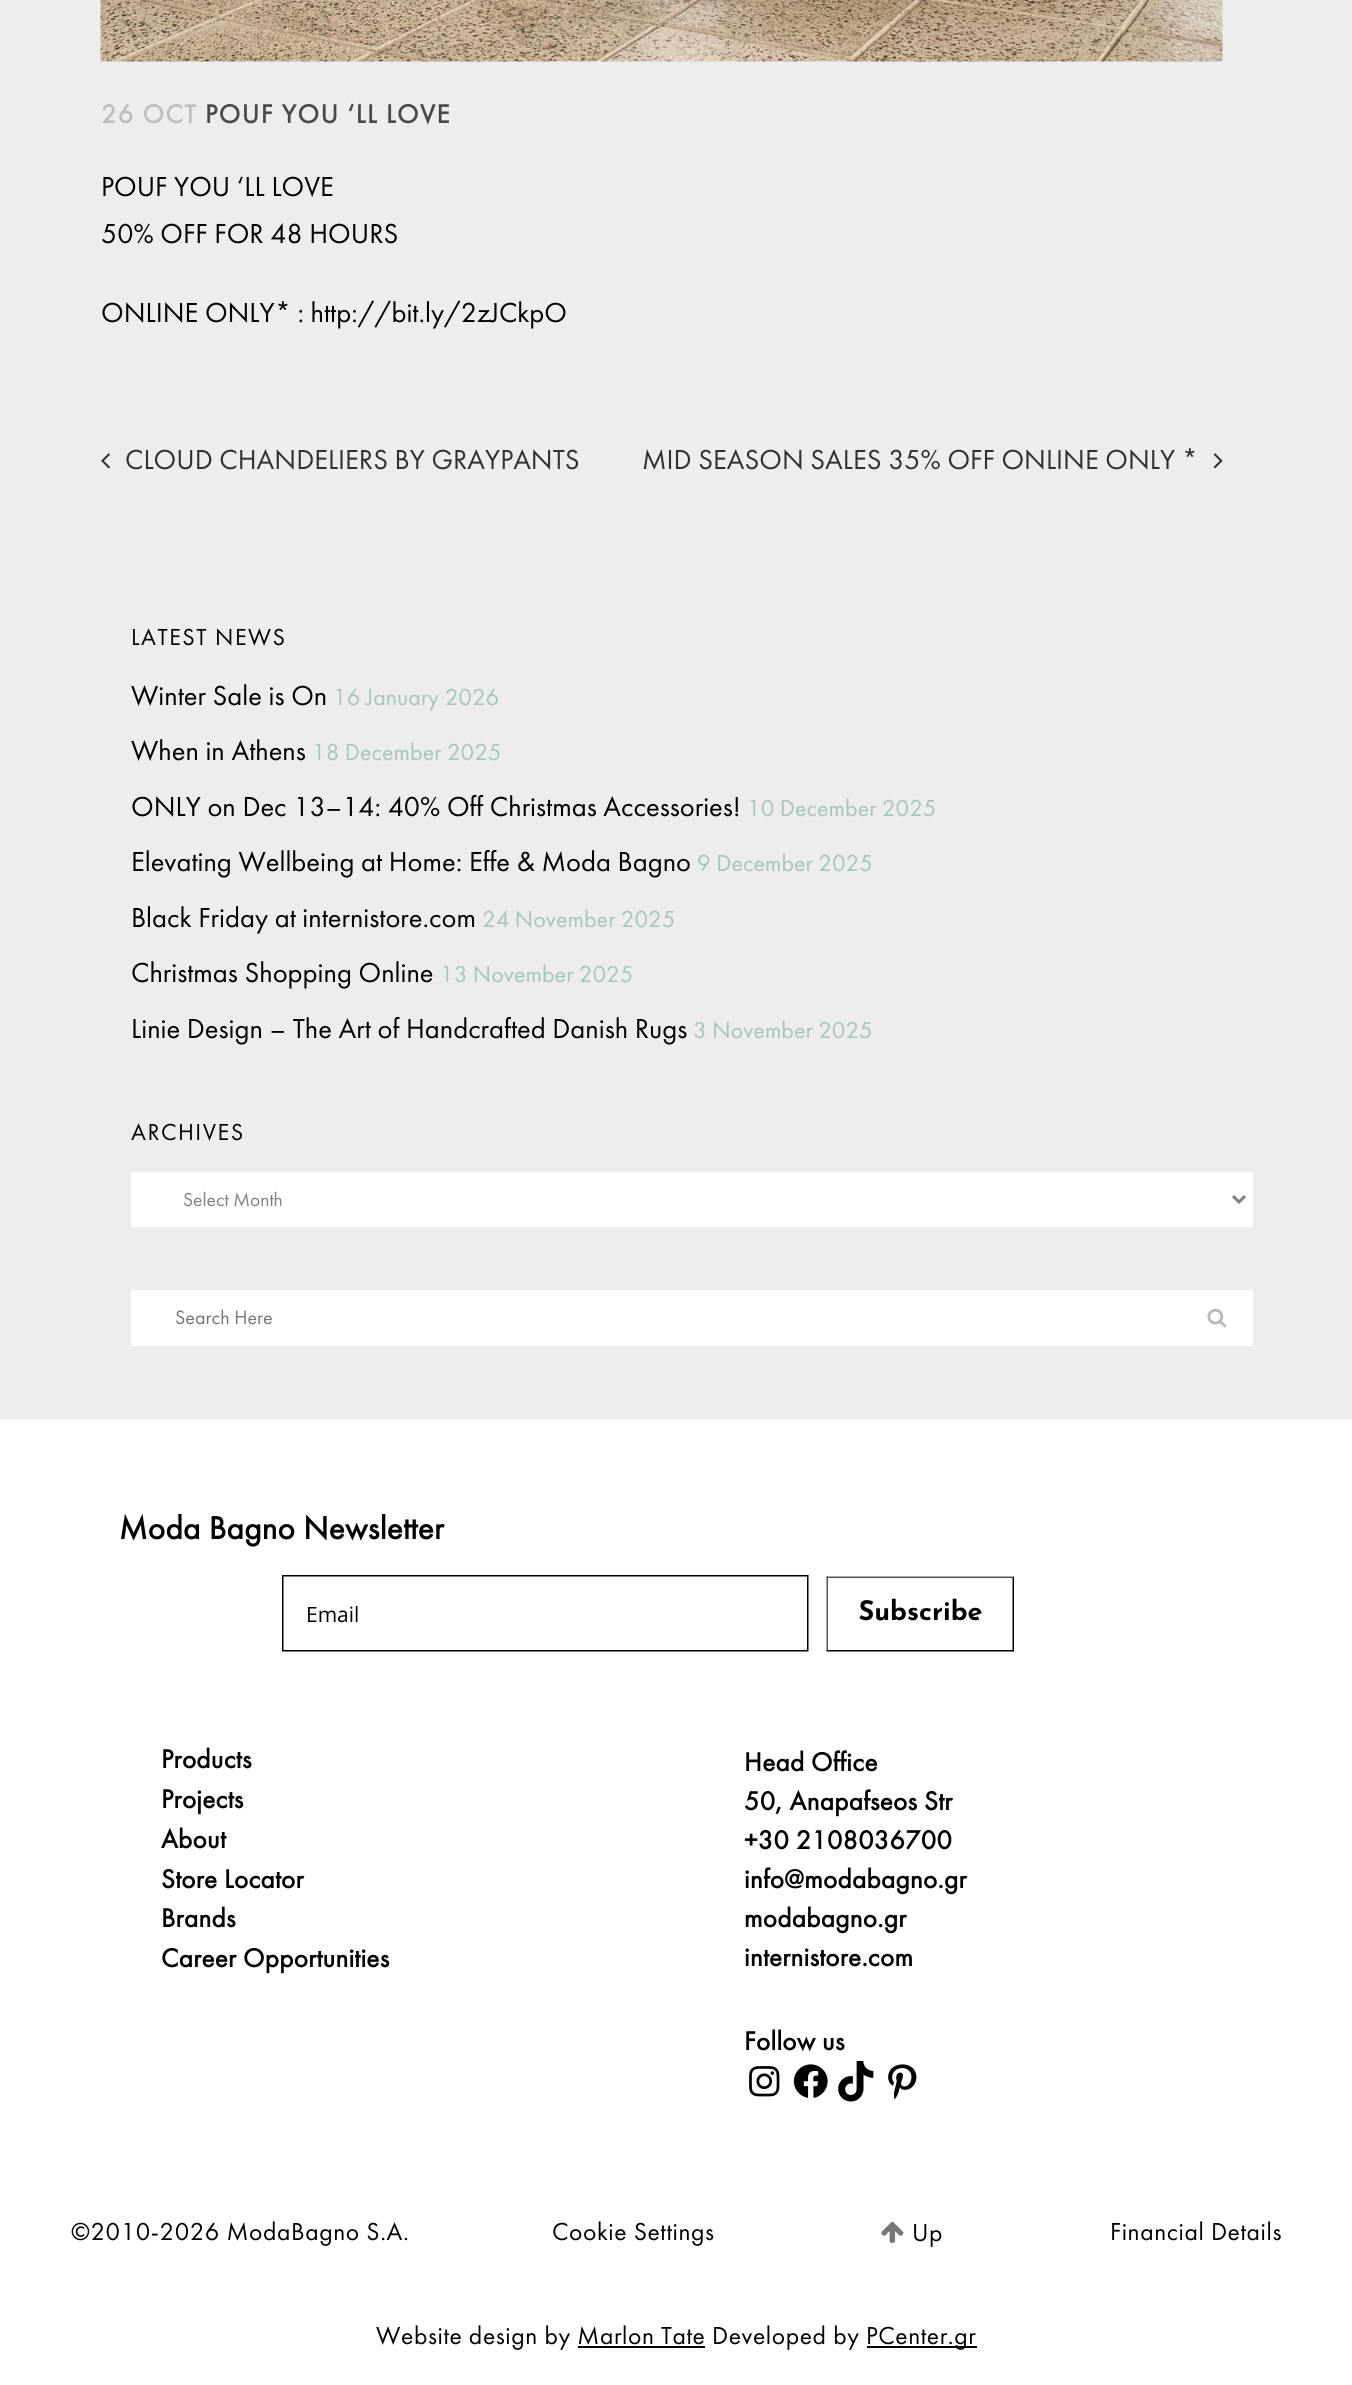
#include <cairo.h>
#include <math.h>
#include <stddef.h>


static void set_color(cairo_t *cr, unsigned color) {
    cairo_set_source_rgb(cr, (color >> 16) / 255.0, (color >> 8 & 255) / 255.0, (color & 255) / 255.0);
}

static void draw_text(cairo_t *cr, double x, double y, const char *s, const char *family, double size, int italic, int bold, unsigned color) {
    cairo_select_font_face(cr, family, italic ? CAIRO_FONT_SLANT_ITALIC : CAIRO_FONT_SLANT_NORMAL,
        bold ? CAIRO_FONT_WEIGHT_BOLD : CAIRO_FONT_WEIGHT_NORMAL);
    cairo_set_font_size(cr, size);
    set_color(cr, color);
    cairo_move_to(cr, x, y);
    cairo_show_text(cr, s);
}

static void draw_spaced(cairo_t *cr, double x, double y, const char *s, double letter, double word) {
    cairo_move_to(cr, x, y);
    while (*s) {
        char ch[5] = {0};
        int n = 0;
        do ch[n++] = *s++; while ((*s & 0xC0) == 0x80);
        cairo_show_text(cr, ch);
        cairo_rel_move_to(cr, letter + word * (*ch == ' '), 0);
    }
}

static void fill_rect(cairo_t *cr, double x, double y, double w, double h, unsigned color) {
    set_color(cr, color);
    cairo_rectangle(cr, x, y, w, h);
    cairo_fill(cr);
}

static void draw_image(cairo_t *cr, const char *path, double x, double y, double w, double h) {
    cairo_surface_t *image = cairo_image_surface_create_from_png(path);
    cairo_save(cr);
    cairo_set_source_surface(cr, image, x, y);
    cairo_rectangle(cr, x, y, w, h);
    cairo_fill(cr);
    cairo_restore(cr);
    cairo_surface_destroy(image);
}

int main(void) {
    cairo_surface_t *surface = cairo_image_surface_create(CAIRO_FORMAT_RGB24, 1352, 2385);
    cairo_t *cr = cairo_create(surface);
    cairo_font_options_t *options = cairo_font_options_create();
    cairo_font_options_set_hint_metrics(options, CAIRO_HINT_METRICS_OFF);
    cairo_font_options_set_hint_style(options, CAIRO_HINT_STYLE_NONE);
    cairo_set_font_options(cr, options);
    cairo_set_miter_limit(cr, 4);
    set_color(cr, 0xECEDEC);
    cairo_paint(cr);
    draw_image(cr, "assets/img1.png", 100, 0, 1123, 62);
    cairo_select_font_face(cr, "Futura PT", CAIRO_FONT_SLANT_NORMAL, CAIRO_FONT_WEIGHT_BOLD);
    cairo_set_font_size(cr, 27);
    set_color(cr, 0xBEBEBE);
    draw_spaced(cr, 101, 123, "26 OCT", 1.5, 0);
    set_color(cr, 0x494949);
    draw_spaced(cr, 205, 123, "POUF YOU ‘LL LOVE", 1.5, 0);
    draw_text(cr, 101, 196, "POUF YOU ‘LL LOVE", "Futura PT", 28.5, 0, 0, 0x000000);
    draw_text(cr, 101, 243, "50% OFF FOR 48 HOURS", "Futura PT", 28.5, 0, 0, 0x000000);
    draw_text(cr, 101, 322, "ONLINE ONLY* : http://bit.ly/2zJCkpO", "Futura PT", 28.5, 0, 0, 0x000000);
    draw_image(cr, "assets/img2.png", 101, 453, 9, 16);
    draw_text(cr, 125, 469, "CLOUD CHANDELIERS BY GRAYPANTS", "Futura PT", 28.5, 0, 0, 0x303030);
    draw_text(cr, 642, 469, "MID SEASON SALES 35% OFF ONLINE ONLY *", "Futura PT", 28.5, 0, 0, 0x303030);
    draw_image(cr, "assets/img3.png", 1213, 453, 10, 16);
    cairo_set_font_size(cr, 24);
    set_color(cr, 0x000000);
    draw_spaced(cr, 131, 645, "LATEST NEWS", 1.5, 0);
    draw_text(cr, 131, 705, "Winter Sale is On", "Futura PT", 28.5, 0, 0, 0x000000);
    draw_text(cr, 333, 705, "16 January 2026", "Futura PT", 24, 0, 0, 0xA6C5BB);
    draw_text(cr, 131, 760, "When in Athens", "Futura PT", 28.5, 0, 0, 0x000000);
    draw_text(cr, 312, 760, "18 December 2025", "Futura PT", 24, 0, 0, 0xA6C5BB);
    draw_text(cr, 131, 816, "ONLY on Dec 13–14: 40% Off Christmas Accessories!", "Futura PT", 28.5, 0, 0, 0x000000);
    draw_text(cr, 747, 816, "10 December 2025", "Futura PT", 24, 0, 0, 0xA6C5BB);
    draw_text(cr, 131, 871, "Elevating Wellbeing at Home: Effe & Moda Bagno", "Futura PT", 28.5, 0, 0, 0x000000);
    draw_text(cr, 697, 871, "9 December 2025", "Futura PT", 24, 0, 0, 0xA6C5BB);
    draw_text(cr, 131, 927, "Black Friday at internistore.com", "Futura PT", 28.5, 0, 0, 0x000000);
    draw_text(cr, 482, 927, "24 November 2025", "Futura PT", 24, 0, 0, 0xA6C5BB);
    draw_text(cr, 131, 982, "Christmas Shopping Online", "Futura PT", 28.5, 0, 0, 0x000000);
    draw_text(cr, 440, 982, "13 November 2025", "Futura PT", 24, 0, 0, 0xA6C5BB);
    draw_text(cr, 131, 1038, "Linie Design – The Art of Handcrafted Danish Rugs", "Futura PT", 28.5, 0, 0, 0x000000);
    draw_text(cr, 693, 1038, "3 November 2025", "Futura PT", 24, 0, 0, 0xA6C5BB);
    set_color(cr, 0x000000);
    draw_spaced(cr, 131, 1140, "ARCHIVES", 1.5, 0);
    fill_rect(cr, 131, 1172, 1122, 55, 0xFFFFFF);
    cairo_new_path(cr);
    cairo_move_to(cr, 1233, 1196);
    cairo_line_to(cr, 1239, 1202);
    cairo_line_to(cr, 1245, 1196);
    set_color(cr, 0x818181);
    cairo_set_line_width(cr, 3);
    cairo_stroke(cr);
    draw_text(cr, 183, 1206, "Select Month", "Futura PT", 19.5, 0, 0, 0x818181);
    fill_rect(cr, 131, 1290, 1122, 56, 0xFFFFFF);
    draw_text(cr, 175, 1324, "Search Here", "Futura PT", 20, 0, 0, 0x757575);
    draw_image(cr, "assets/img4.png", 1207, 1308, 19, 20);
    fill_rect(cr, 0, 1419, 1352, 966, 0xFFFFFF);
    cairo_select_font_face(cr, "Futura PT", CAIRO_FONT_SLANT_NORMAL, CAIRO_FONT_WEIGHT_BOLD);
    cairo_set_font_size(cr, 33);
    set_color(cr, 0x000000);
    draw_spaced(cr, 119, 1539, "Moda Bagno Newsletter", 0.3, 0);
    draw_image(cr, "assets/img5.png", 282, 1575, 732, 77);
    cairo_set_font_size(cr, 27);
    draw_spaced(cr, 161, 1768, "Products", 0.3, 0);
    draw_spaced(cr, 161, 1808, "Projects", 0.3, 0);
    draw_spaced(cr, 161, 1848, "About", 0.3, 0);
    draw_spaced(cr, 161, 1888, "Store Locator", 0.3, 0);
    draw_spaced(cr, 161, 1927, "Brands", 0.3, 0);
    draw_spaced(cr, 161, 1967, "Career Opportunities", 0.3, 0);
    draw_spaced(cr, 744, 1771, "Head Office", 0.3, 0);
    draw_spaced(cr, 744, 1810, "50, Anapafseos Str", 0.3, 0);
    draw_spaced(cr, 744, 1849, "+30 2108036700", 0.3, 0);
    draw_spaced(cr, 744, 1888, "info@modabagno.gr", 0.3, 0);
    draw_spaced(cr, 744, 1927, "modabagno.gr", 0.3, 0);
    draw_spaced(cr, 744, 1966, "internistore.com", 0.3, 0);
    draw_spaced(cr, 744, 2050, "Follow us", 0.3, 0);
    draw_image(cr, "assets/img6.png", 749, 2066, 31, 31);
    draw_image(cr, "assets/img7.png", 793, 2064, 35, 34);
    draw_image(cr, "assets/img8.png", 838, 2061, 36, 41);
    draw_image(cr, "assets/img9.png", 888, 2064, 29, 36);
    cairo_select_font_face(cr, "Futura PT", CAIRO_FONT_SLANT_NORMAL, CAIRO_FONT_WEIGHT_NORMAL);
    cairo_set_font_size(cr, 25.5);
    draw_spaced(cr, 71, 2240, "©2010-2026 ModaBagno S.A.", 0.6, 0);
    draw_spaced(cr, 552, 2240, "Cookie Settings", 0.6, 0);
    draw_image(cr, "assets/img10.png", 881, 2221, 23, 22);
    draw_spaced(cr, 912, 2241, "Up", 0.6, 0);
    draw_spaced(cr, 1110, 2240, "Financial Details", 0.6, 0);
    draw_spaced(cr, 376, 2344, "Website design by Marlon Tate Developed by", 0.6, 0);
    fill_rect(cr, 867, 2346, 110, 2, 0x000000);
    draw_spaced(cr, 866, 2344, "PCenter.gr", 0.6, 0);
    fill_rect(cr, 578, 2346, 127, 2, 0x000000);
    cairo_surface_write_to_png(surface, "output.png");
    cairo_font_options_destroy(options);
    cairo_destroy(cr);
    cairo_surface_destroy(surface);
    return 0;
}
